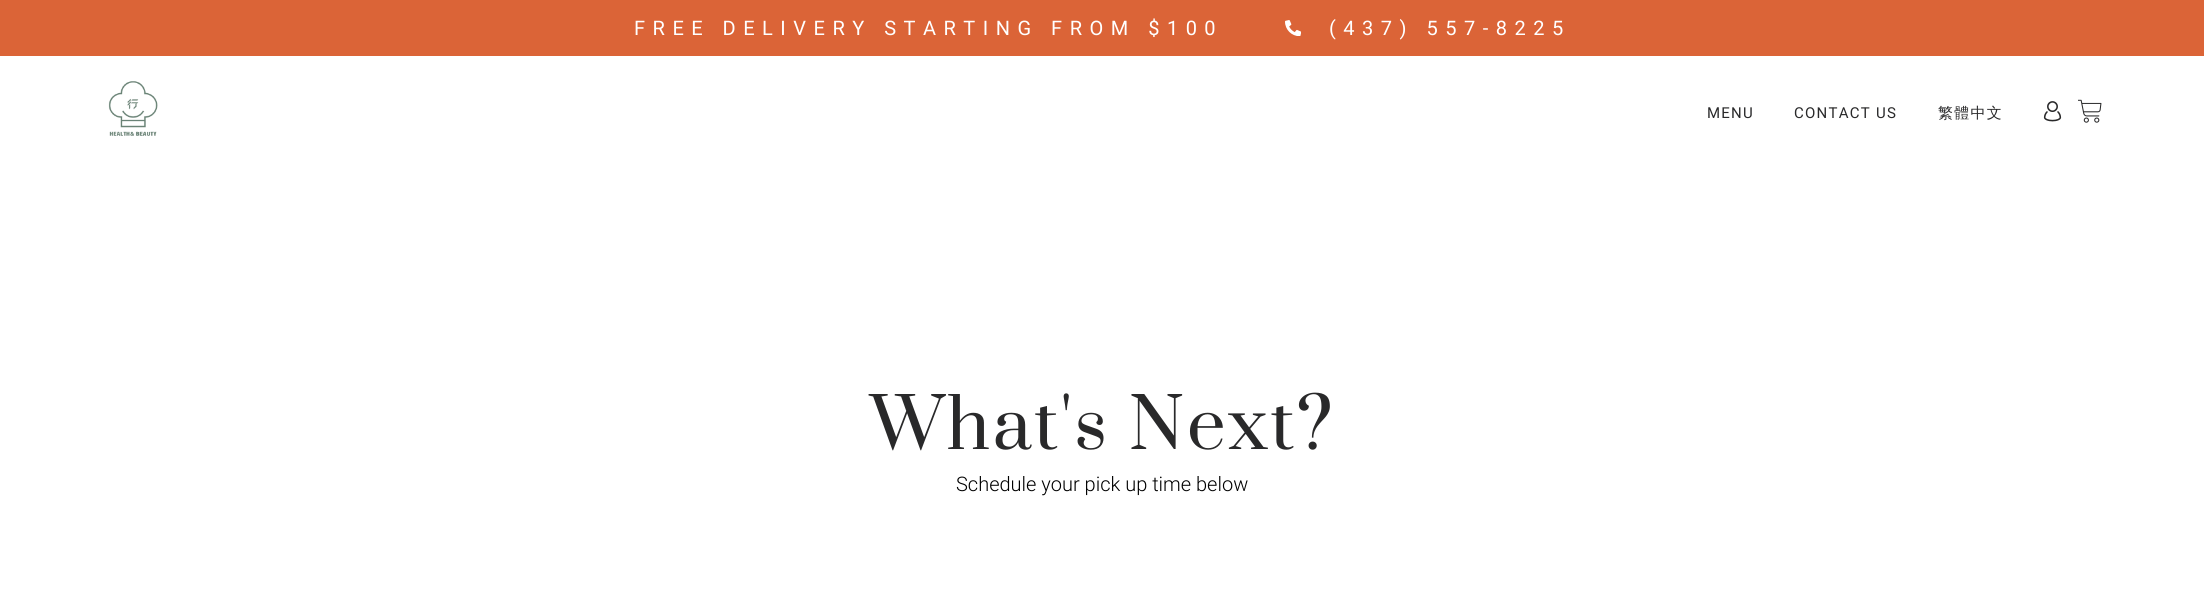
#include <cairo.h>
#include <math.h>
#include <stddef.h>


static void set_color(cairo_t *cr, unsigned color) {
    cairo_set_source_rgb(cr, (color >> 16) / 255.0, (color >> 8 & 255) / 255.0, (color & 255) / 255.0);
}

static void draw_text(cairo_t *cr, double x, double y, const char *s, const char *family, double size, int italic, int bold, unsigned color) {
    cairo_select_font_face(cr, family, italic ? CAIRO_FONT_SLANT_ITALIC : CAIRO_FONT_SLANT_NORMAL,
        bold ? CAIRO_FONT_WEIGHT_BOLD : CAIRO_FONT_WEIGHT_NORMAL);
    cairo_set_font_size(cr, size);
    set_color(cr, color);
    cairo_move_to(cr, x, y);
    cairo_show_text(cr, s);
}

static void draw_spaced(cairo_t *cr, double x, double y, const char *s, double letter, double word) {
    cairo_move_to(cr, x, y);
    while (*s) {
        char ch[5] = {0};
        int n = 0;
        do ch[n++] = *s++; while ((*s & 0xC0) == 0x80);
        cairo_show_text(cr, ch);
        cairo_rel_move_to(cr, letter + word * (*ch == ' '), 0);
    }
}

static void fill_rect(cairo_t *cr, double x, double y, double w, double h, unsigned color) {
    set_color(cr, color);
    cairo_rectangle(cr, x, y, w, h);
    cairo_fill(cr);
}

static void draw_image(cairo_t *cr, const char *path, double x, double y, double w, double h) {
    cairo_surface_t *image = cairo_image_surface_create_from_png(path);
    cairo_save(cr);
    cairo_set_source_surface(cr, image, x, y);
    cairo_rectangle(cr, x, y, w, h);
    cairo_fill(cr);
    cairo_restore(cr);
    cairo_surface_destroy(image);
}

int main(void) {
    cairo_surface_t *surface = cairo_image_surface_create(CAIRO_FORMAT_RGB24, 2204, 599);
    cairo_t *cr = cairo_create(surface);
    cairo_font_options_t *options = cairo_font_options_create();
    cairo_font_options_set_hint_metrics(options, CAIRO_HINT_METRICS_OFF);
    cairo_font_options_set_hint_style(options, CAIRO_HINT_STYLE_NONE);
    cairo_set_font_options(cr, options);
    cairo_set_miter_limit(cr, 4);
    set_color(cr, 0xFFFFFF);
    cairo_paint(cr);
    fill_rect(cr, 0, 0, 2204, 56, 0xDB6437);
    cairo_select_font_face(cr, "Roboto", CAIRO_FONT_SLANT_NORMAL, CAIRO_FONT_WEIGHT_NORMAL);
    cairo_set_font_size(cr, 20);
    set_color(cr, 0xFFFFFF);
    draw_spaced(cr, 634, 35, "FREE DELIVERY STARTING FROM $100", 7.5, 0);
    draw_image(cr, "assets/img1.png", 1285, 20, 16, 16);
    draw_spaced(cr, 1329, 35, "(437) 557-8225", 7.5, 0);
    draw_image(cr, "assets/img2.png", 108, 81, 50, 55);
    cairo_set_font_size(cr, 15);
    set_color(cr, 0x29292A);
    draw_spaced(cr, 1707, 118, "MENU", 1.25, 0);
    draw_spaced(cr, 1794, 118, "CONTACT US", 1.25, 0);
    cairo_select_font_face(cr, "WenQuanYi Zen Hei Medium", CAIRO_FONT_SLANT_NORMAL, CAIRO_FONT_WEIGHT_NORMAL);
    draw_spaced(cr, 1938, 118, "繁體中文", 1.25, 0);
    draw_image(cr, "assets/img3.png", 2043, 101, 19, 21);
    draw_image(cr, "assets/img4.png", 2078, 99, 24, 24);
    cairo_select_font_face(cr, "Prata", CAIRO_FONT_SLANT_NORMAL, CAIRO_FONT_WEIGHT_NORMAL);
    cairo_set_font_size(cr, 68.75);
    draw_spaced(cr, 870, 449, "What's Next?", 2.5, 0);
    draw_text(cr, 956, 491, "Schedule your pick up time below", "Roboto Light", 20, 0, 0, 0x000000);
    cairo_surface_write_to_png(surface, "output.png");
    cairo_font_options_destroy(options);
    cairo_destroy(cr);
    cairo_surface_destroy(surface);
    return 0;
}
